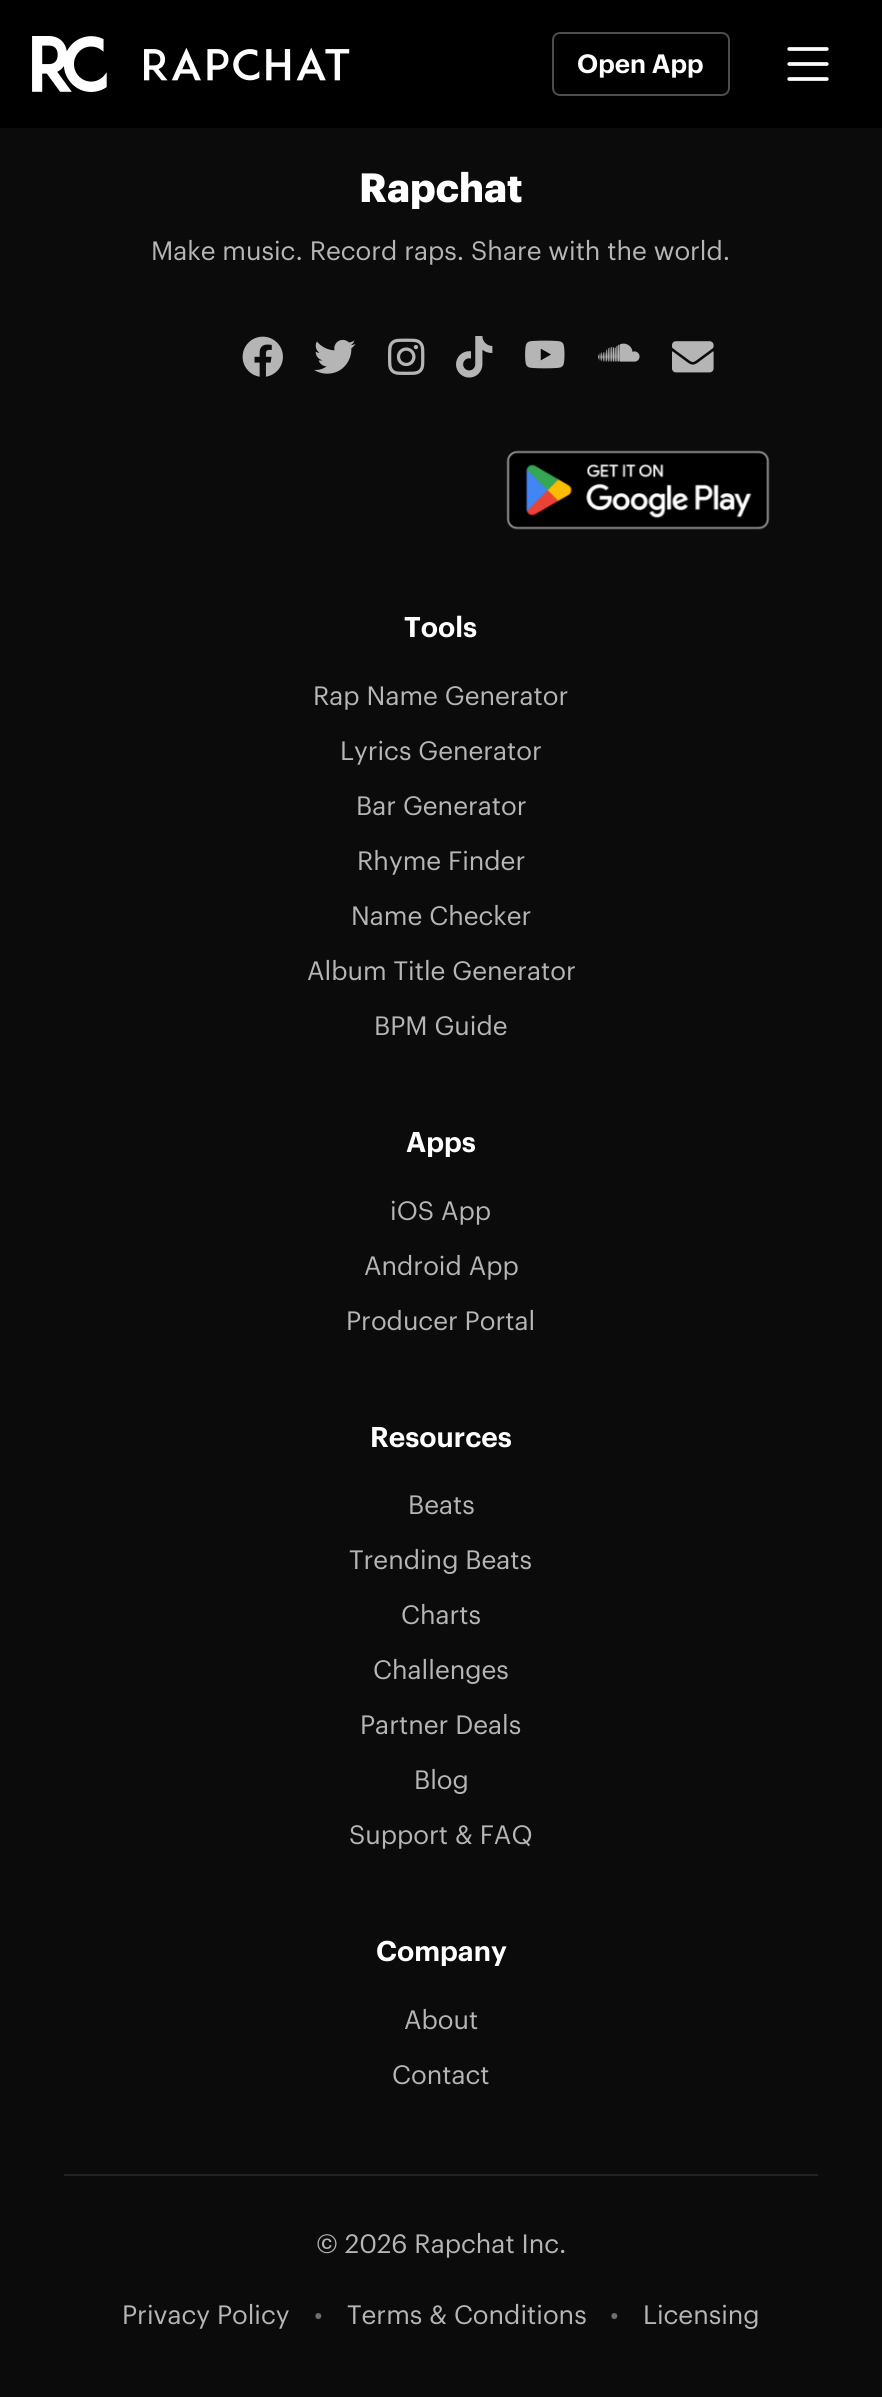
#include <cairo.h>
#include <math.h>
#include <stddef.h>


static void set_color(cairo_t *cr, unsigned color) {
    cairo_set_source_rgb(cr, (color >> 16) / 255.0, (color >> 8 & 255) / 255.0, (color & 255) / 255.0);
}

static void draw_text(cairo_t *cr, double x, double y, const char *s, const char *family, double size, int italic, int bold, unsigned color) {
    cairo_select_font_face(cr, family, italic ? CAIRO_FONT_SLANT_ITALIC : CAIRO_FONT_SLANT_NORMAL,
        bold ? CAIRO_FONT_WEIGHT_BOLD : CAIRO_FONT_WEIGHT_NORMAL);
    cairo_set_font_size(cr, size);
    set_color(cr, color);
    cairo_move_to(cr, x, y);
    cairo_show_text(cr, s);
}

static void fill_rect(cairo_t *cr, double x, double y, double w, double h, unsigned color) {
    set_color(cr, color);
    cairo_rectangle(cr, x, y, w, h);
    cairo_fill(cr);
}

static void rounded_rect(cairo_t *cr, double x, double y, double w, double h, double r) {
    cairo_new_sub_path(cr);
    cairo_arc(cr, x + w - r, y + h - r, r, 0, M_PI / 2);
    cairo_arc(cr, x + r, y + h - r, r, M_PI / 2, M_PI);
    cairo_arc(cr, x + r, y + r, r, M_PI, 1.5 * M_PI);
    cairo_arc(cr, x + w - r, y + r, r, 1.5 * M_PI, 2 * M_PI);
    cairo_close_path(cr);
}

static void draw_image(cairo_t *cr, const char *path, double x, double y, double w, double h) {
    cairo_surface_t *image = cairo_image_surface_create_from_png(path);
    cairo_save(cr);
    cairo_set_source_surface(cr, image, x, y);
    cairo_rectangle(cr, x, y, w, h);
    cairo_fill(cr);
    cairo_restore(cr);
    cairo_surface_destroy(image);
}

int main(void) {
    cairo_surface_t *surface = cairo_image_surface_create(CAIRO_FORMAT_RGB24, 882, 2397);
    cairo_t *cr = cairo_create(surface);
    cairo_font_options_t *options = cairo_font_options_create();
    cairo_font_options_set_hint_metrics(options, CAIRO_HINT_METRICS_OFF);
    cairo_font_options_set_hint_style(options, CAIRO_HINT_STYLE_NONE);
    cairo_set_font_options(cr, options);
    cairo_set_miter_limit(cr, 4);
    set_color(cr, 0x0B0B0B);
    cairo_paint(cr);
    fill_rect(cr, 0, 0, 882, 128, 0x000000);
    draw_image(cr, "assets/img1.png", 32, 36, 318, 56);
    rounded_rect(cr, 553, 33, 176, 62, 7);
    set_color(cr, 0x4D4D4D);
    cairo_stroke(cr);
    draw_text(cr, 577, 73, "Open App", "Graphik SemiBold", 26, 0, 0, 0xFFFFFF);
    draw_image(cr, "assets/img2.png", 787, 47, 42, 34);
    draw_text(cr, 359, 202, "Rapchat", "Graphik", 40, 0, 1, 0xFFFFFF);
    draw_text(cr, 151, 260, "Make music. Record raps. Share with the world.", "Graphik", 26, 0, 0, 0xB6B6B6);
    draw_image(cr, "assets/img3.png", 242, 336, 41, 41);
    draw_image(cr, "assets/img4.png", 314, 339, 42, 35);
    draw_image(cr, "assets/img5.png", 388, 338, 37, 37);
    draw_image(cr, "assets/img6.png", 456, 336, 37, 42);
    draw_image(cr, "assets/img7.png", 525, 340, 40, 29);
    draw_image(cr, "assets/img8.png", 598, 343, 42, 19);
    draw_image(cr, "assets/img9.png", 672, 341, 42, 32);
    draw_image(cr, "assets/img10.png", 506, 450, 264, 80);
    draw_text(cr, 404, 637, "Tools", "Graphik SemiBold", 28, 0, 0, 0xFFFFFF);
    draw_text(cr, 313, 705, "Rap Name Generator", "Graphik", 26, 0, 0, 0xB6B6B6);
    draw_text(cr, 340, 760, "Lyrics Generator", "Graphik", 26, 0, 0, 0xB6B6B6);
    draw_text(cr, 356, 815, "Bar Generator", "Graphik", 26, 0, 0, 0xB6B6B6);
    draw_text(cr, 357, 870, "Rhyme Finder", "Graphik", 26, 0, 0, 0xB6B6B6);
    draw_text(cr, 351, 925, "Name Checker", "Graphik", 26, 0, 0, 0xB6B6B6);
    draw_text(cr, 307, 980, "Album Title Generator", "Graphik", 26, 0, 0, 0xB6B6B6);
    draw_text(cr, 374, 1035, "BPM Guide", "Graphik", 26, 0, 0, 0xB6B6B6);
    draw_text(cr, 406, 1152, "Apps", "Graphik SemiBold", 28, 0, 0, 0xFFFFFF);
    draw_text(cr, 390, 1220, "iOS App", "Graphik", 26, 0, 0, 0xB6B6B6);
    draw_text(cr, 364, 1275, "Android App", "Graphik", 26, 0, 0, 0xB6B6B6);
    draw_text(cr, 346, 1330, "Producer Portal", "Graphik", 26, 0, 0, 0xB6B6B6);
    draw_text(cr, 370, 1447, "Resources", "Graphik SemiBold", 28, 0, 0, 0xFFFFFF);
    draw_text(cr, 408, 1514, "Beats", "Graphik", 26, 0, 0, 0xB6B6B6);
    draw_text(cr, 349, 1569, "Trending Beats", "Graphik", 26, 0, 0, 0xB6B6B6);
    draw_text(cr, 401, 1624, "Charts", "Graphik", 26, 0, 0, 0xB6B6B6);
    draw_text(cr, 373, 1679, "Challenges", "Graphik", 26, 0, 0, 0xB6B6B6);
    draw_text(cr, 360, 1734, "Partner Deals", "Graphik", 26, 0, 0, 0xB6B6B6);
    draw_text(cr, 414, 1789, "Blog", "Graphik", 26, 0, 0, 0xB6B6B6);
    draw_text(cr, 349, 1844, "Support & FAQ", "Graphik", 26, 0, 0, 0xB6B6B6);
    draw_text(cr, 376, 1961, "Company", "Graphik SemiBold", 28, 0, 0, 0xFFFFFF);
    draw_text(cr, 404, 2029, "About", "Graphik", 26, 0, 0, 0xB6B6B6);
    draw_text(cr, 392, 2084, "Contact", "Graphik", 26, 0, 0, 0xB6B6B6);
    fill_rect(cr, 64, 2174, 754, 2, 0x232323);
    draw_text(cr, 316, 2253, "© 2026 Rapchat Inc.", "Graphik", 26, 0, 0, 0xB6B6B6);
    draw_text(cr, 122, 2324, "Privacy Policy", "Graphik", 26, 0, 0, 0xB6B6B6);
    draw_text(cr, 314, 2324, "•", "Graphik", 26, 0, 0, 0x6D6D6D);
    draw_text(cr, 347, 2324, "Terms & Conditions", "Graphik", 26, 0, 0, 0xB6B6B6);
    draw_text(cr, 610, 2324, "•", "Graphik", 26, 0, 0, 0x6D6D6D);
    draw_text(cr, 643, 2324, "Licensing", "Graphik", 26, 0, 0, 0xB6B6B6);
    cairo_surface_write_to_png(surface, "output.png");
    cairo_font_options_destroy(options);
    cairo_destroy(cr);
    cairo_surface_destroy(surface);
    return 0;
}
